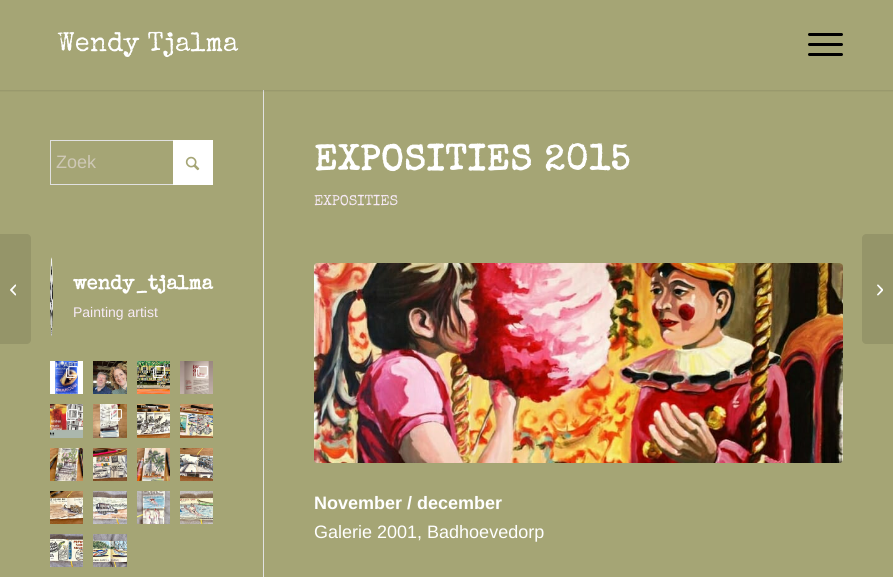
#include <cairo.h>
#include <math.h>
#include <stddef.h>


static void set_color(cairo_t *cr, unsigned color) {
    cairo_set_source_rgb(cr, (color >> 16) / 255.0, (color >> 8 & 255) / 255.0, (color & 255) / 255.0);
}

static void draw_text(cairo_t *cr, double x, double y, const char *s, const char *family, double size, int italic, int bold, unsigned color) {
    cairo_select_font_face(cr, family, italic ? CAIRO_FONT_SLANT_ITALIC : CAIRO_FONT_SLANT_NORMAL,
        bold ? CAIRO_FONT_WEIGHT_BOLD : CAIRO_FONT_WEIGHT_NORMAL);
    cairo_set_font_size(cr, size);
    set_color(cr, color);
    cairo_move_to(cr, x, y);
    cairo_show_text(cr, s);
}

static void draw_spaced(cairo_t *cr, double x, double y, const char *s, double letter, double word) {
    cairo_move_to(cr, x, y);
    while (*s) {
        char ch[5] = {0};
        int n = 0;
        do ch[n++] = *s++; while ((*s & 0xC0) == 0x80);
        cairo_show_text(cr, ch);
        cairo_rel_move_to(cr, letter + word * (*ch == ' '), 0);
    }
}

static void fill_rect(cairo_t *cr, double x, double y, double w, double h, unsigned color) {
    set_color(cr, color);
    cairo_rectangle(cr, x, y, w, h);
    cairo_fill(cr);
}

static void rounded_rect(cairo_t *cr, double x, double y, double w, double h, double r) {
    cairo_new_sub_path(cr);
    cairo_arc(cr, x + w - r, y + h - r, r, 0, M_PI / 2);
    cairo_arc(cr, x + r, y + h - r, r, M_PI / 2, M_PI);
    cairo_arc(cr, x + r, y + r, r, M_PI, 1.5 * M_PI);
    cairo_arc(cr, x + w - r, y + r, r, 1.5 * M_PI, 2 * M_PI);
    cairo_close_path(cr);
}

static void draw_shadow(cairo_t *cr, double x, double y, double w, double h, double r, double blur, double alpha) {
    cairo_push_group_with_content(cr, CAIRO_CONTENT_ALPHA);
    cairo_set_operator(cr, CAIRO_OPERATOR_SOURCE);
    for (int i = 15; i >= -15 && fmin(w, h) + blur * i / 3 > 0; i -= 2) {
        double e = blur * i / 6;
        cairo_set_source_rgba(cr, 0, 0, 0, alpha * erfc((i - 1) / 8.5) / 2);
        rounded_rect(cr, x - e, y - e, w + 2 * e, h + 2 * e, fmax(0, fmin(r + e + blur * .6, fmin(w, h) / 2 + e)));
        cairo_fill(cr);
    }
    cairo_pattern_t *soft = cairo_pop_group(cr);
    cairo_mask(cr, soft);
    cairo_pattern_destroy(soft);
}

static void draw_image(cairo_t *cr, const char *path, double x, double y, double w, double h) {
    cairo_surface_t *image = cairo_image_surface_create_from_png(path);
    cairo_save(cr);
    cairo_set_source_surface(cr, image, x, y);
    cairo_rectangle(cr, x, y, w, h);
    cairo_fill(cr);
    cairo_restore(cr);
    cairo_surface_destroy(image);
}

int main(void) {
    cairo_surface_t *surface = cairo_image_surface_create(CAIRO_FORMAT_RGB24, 893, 577);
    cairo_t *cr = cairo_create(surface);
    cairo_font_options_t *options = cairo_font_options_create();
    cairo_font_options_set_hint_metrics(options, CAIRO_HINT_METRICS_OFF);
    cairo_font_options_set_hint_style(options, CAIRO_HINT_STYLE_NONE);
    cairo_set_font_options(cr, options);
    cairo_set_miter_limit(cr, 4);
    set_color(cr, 0xA5A575);
    cairo_paint(cr);
    fill_rect(cr, 263, 90, 1, 487, 0xE1E1E1);
    cairo_save(cr);
    cairo_rectangle(cr, 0, 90, 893, 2);
    cairo_clip(cr);
    set_color(cr, 0x000000);
    draw_shadow(cr, -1, -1, 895, 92, 0, 1, 0.1);
    cairo_restore(cr);
    draw_image(cr, "assets/img1.png", 57, 31, 182, 27);
    set_color(cr, 0x000000);
    rounded_rect(cr, 808, 43, 35, 3, 1.5);
    cairo_fill(cr);
    rounded_rect(cr, 808, 33, 35, 3, 1.5);
    cairo_fill(cr);
    rounded_rect(cr, 808, 53, 35, 3, 1.5);
    cairo_fill(cr);
    set_color(cr, 0x959569);
    cairo_new_path(cr);
    cairo_move_to(cr, 0, 234);
    cairo_line_to(cr, 27, 234);
    cairo_curve_to(cr, 29, 234, 31, 236, 31, 238);
    cairo_line_to(cr, 31, 340);
    cairo_curve_to(cr, 31, 342, 29, 344, 27, 344);
    cairo_line_to(cr, 0, 344);
    cairo_close_path(cr);
    cairo_fill(cr);
    draw_image(cr, "assets/img2.png", 10, 284, 6, 12);
    cairo_rectangle(cr, 50.5, 140.5, 162, 44);
    set_color(cr, 0xE1E1E1);
    cairo_set_line_width(cr, 1);
    cairo_stroke(cr);
    draw_text(cr, 56, 168, "Zoek", "Liberation Sans", 18, 0, 0, 0xCEC8B6);
    fill_rect(cr, 173, 140, 40, 45, 0xFFFFFF);
    draw_image(cr, "assets/img3.png", 185, 156, 15, 15);
    draw_image(cr, "assets/img4.png", 50, 257, 3, 80);
    draw_text(cr, 73, 289, "wendy_tjalma", "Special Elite", 20, 0, 1, 0xFFFFFF);
    draw_text(cr, 73, 317, "Painting artist", "Liberation Sans", 14, 0, 0, 0xF7EAF7);
    draw_image(cr, "assets/img5.png", 50, 361, 33, 33);
    draw_image(cr, "assets/img6.png", 66, 366, 12, 12);
    draw_image(cr, "assets/img7.png", 93, 361, 34, 33);
    draw_image(cr, "assets/img8.png", 137, 361, 33, 33);
    draw_image(cr, "assets/img9.png", 153, 366, 12, 12);
    draw_image(cr, "assets/img10.png", 180, 361, 33, 33);
    draw_image(cr, "assets/img11.png", 196, 366, 12, 12);
    draw_image(cr, "assets/img12.png", 50, 404, 33, 34);
    draw_image(cr, "assets/img13.png", 66, 409, 12, 12);
    draw_image(cr, "assets/img14.png", 93, 404, 34, 34);
    draw_image(cr, "assets/img15.png", 110, 409, 12, 12);
    draw_image(cr, "assets/img16.png", 137, 404, 33, 34);
    draw_image(cr, "assets/img17.png", 180, 404, 33, 34);
    draw_image(cr, "assets/img18.png", 50, 448, 33, 33);
    draw_image(cr, "assets/img19.png", 93, 448, 34, 33);
    draw_image(cr, "assets/img20.png", 137, 448, 33, 33);
    draw_image(cr, "assets/img21.png", 180, 448, 33, 33);
    draw_image(cr, "assets/img22.png", 50, 491, 33, 33);
    draw_image(cr, "assets/img23.png", 93, 491, 34, 33);
    draw_image(cr, "assets/img24.png", 137, 491, 33, 33);
    draw_image(cr, "assets/img25.png", 180, 491, 33, 33);
    draw_image(cr, "assets/img26.png", 50, 534, 33, 33);
    draw_image(cr, "assets/img27.png", 93, 534, 34, 33);
    cairo_select_font_face(cr, "Special Elite", CAIRO_FONT_SLANT_NORMAL, CAIRO_FONT_WEIGHT_BOLD);
    cairo_set_font_size(cr, 36);
    set_color(cr, 0xFFFFFF);
    draw_spaced(cr, 314, 170, "EXPOSITIES 2015", 1, 0);
    draw_text(cr, 314, 205, "EXPOSITIES", "Special Elite", 14.5, 0, 0, 0xF7EAF7);
    draw_image(cr, "assets/img28.png", 314, 263, 529, 200);
    draw_text(cr, 314, 509, "November / december", "Liberation Sans", 18, 0, 1, 0xFFFFFF);
    draw_text(cr, 314, 538, "Galerie 2001, Badhoevedorp", "Liberation Sans", 18, 0, 0, 0xFFFFFF);
    set_color(cr, 0x959569);
    cairo_new_path(cr);
    cairo_move_to(cr, 866, 234);
    cairo_line_to(cr, 893, 234);
    cairo_line_to(cr, 893, 344);
    cairo_line_to(cr, 866, 344);
    cairo_curve_to(cr, 864, 344, 862, 342, 862, 340);
    cairo_line_to(cr, 862, 238);
    cairo_curve_to(cr, 862, 236, 864, 234, 866, 234);
    cairo_close_path(cr);
    cairo_fill(cr);
    draw_image(cr, "assets/img29.png", 877, 284, 6, 12);
    cairo_surface_write_to_png(surface, "output.png");
    cairo_font_options_destroy(options);
    cairo_destroy(cr);
    cairo_surface_destroy(surface);
    return 0;
}
